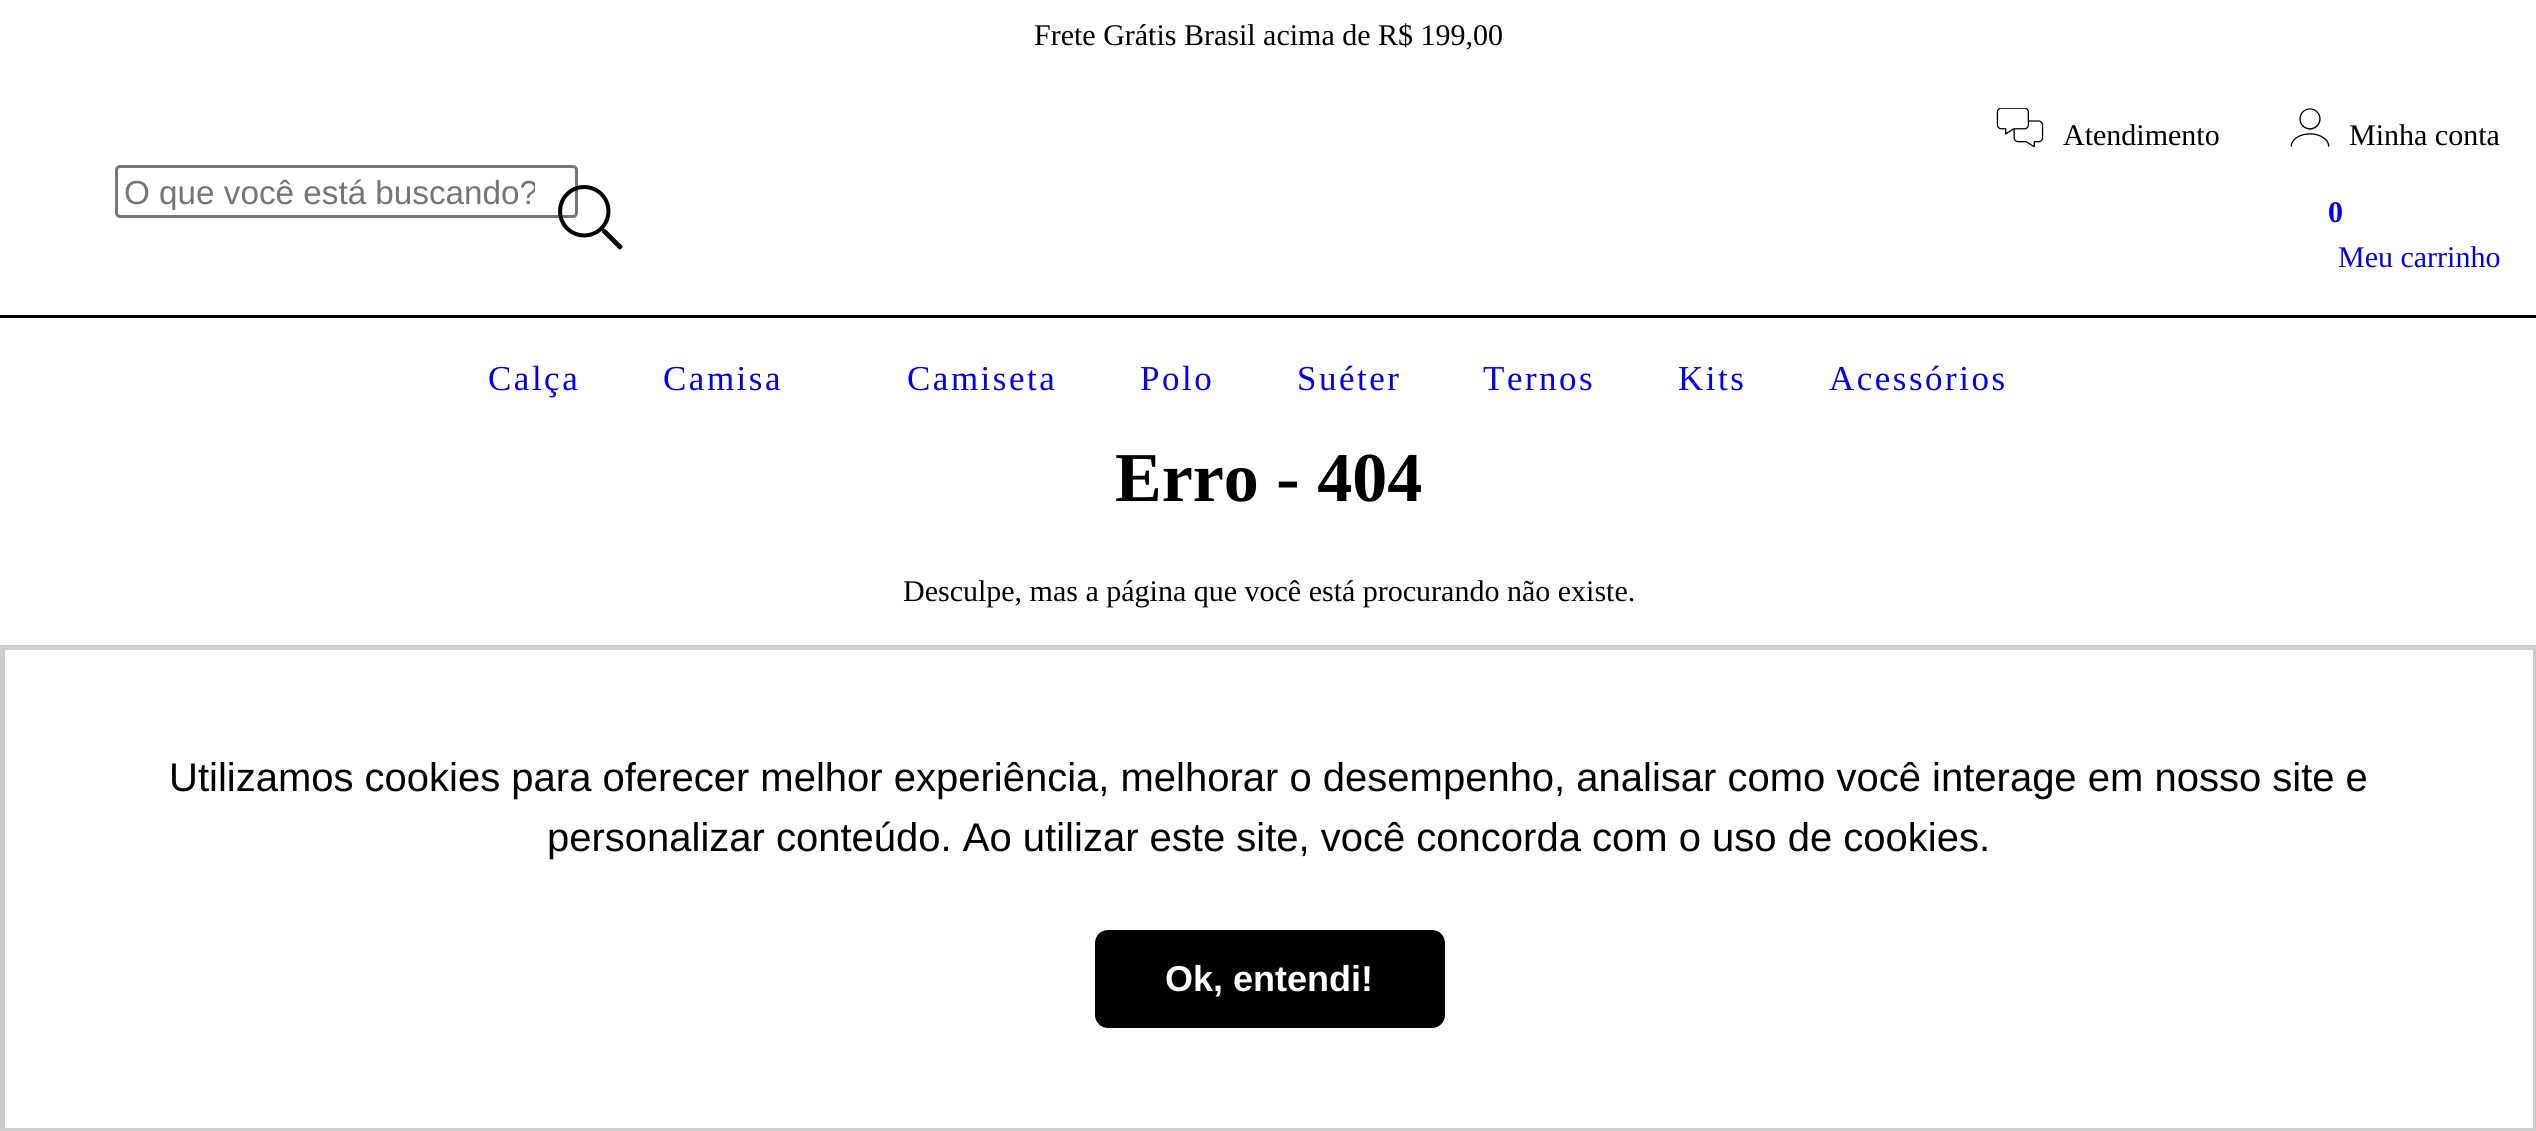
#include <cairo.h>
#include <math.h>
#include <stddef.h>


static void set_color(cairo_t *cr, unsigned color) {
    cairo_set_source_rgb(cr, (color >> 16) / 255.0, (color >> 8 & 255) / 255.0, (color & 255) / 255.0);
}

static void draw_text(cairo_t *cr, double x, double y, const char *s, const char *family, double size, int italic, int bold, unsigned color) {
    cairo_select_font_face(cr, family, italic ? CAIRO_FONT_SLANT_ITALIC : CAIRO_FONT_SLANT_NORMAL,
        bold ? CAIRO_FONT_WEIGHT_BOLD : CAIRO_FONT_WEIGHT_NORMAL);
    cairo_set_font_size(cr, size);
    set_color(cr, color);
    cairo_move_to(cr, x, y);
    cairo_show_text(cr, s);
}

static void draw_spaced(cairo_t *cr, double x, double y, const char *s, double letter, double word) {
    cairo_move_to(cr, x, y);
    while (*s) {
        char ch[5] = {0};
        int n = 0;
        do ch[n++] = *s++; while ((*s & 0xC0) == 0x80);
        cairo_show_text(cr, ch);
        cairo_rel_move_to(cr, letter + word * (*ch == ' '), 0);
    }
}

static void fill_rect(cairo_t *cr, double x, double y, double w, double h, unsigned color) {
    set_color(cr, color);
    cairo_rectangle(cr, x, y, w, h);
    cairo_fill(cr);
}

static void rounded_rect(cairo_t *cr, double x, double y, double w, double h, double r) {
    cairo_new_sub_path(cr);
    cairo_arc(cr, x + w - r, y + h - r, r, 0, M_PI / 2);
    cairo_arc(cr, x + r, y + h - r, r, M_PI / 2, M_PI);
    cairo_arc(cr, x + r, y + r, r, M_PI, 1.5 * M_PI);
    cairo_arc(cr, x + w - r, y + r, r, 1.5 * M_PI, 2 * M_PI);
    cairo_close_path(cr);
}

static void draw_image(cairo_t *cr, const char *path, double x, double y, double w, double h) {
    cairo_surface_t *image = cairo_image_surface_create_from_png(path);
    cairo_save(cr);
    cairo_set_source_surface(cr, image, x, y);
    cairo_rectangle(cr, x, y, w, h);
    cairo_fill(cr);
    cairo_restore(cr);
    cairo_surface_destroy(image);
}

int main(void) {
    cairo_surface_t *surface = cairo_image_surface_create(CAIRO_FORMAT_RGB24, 2536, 1131);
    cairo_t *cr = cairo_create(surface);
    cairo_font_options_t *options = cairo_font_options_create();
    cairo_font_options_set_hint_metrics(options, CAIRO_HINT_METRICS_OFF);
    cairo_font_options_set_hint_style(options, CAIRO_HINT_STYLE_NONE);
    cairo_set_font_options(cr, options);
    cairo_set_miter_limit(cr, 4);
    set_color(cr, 0xFFFFFF);
    cairo_paint(cr);
    draw_text(cr, 1034, 45, "Frete Grátis Brasil acima de R$ 199,00", "Liberation Serif", 30, 0, 0, 0x000000);
    rounded_rect(cr, 116.5, 166.5, 460, 50, 3.5);
    set_color(cr, 0x767676);
    cairo_set_line_width(cr, 3);
    cairo_stroke(cr);
    cairo_save(cr);
    cairo_rectangle(cr, 125, 173, 410, 37);
    cairo_clip(cr);
    draw_text(cr, 124, 204, "O que você está buscando?", "Liberation Sans", 33.25, 0, 0, 0x757575);
    cairo_restore(cr);
    draw_image(cr, "assets/img1.png", 558, 185, 65, 65);
    draw_image(cr, "assets/img2.png", 1996, 108, 48, 39);
    draw_text(cr, 2063, 145, "Atendimento", "Liberation Serif", 30, 0, 0, 0x000000);
    draw_image(cr, "assets/img3.png", 2290, 108, 40, 39);
    draw_text(cr, 2349, 145, "Minha conta", "Liberation Serif", 30, 0, 0, 0x000000);
    draw_text(cr, 2328, 222, "0", "Liberation Serif", 30, 0, 1, 0x0000EE);
    draw_text(cr, 2338, 267, "Meu carrinho", "Liberation Serif", 30, 0, 0, 0x0000EE);
    fill_rect(cr, 0, 315, 2536, 3, 0x000000);
    cairo_set_font_size(cr, 35);
    set_color(cr, 0x0000EE);
    draw_spaced(cr, 488, 390, "Calça", 2.5, 0);
    draw_spaced(cr, 663, 390, "Camisa", 2.5, 0);
    draw_spaced(cr, 907, 390, "Camiseta", 2.5, 0);
    draw_spaced(cr, 1140, 390, "Polo", 2.5, 0);
    draw_spaced(cr, 1297, 390, "Suéter", 2.5, 0);
    draw_spaced(cr, 1483, 390, "Ternos", 2.5, 0);
    draw_spaced(cr, 1678, 390, "Kits", 2.5, 0);
    draw_spaced(cr, 1829, 390, "Acessórios", 2.5, 0);
    draw_text(cr, 1115, 501, "Erro - 404", "Liberation Serif", 70, 0, 1, 0x000000);
    draw_text(cr, 903, 601, "Desculpe, mas a página que você está procurando não existe.", "Liberation Serif", 30, 0, 0, 0x000000);
    cairo_rectangle(cr, 2.5, 647.5, 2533, 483);
    set_color(cr, 0xCCCCCC);
    cairo_set_line_width(cr, 5);
    cairo_stroke(cr);
    draw_text(cr, 169, 791, "Utilizamos cookies para oferecer melhor experiência, melhorar o desempenho, analisar como você interage em nosso site e", "Liberation Sans", 40, 0, 0, 0x000000);
    draw_text(cr, 547, 851, "personalizar conteúdo. Ao utilizar este site, você concorda com o uso de cookies.", "Liberation Sans", 40, 0, 0, 0x000000);
    rounded_rect(cr, 1095, 930, 350, 98, 13);
    cairo_fill(cr);
    draw_text(cr, 1165, 991, "Ok, entendi!", "Liberation Sans", 36, 0, 1, 0xFFFFFF);
    cairo_surface_write_to_png(surface, "output.png");
    cairo_font_options_destroy(options);
    cairo_destroy(cr);
    cairo_surface_destroy(surface);
    return 0;
}
